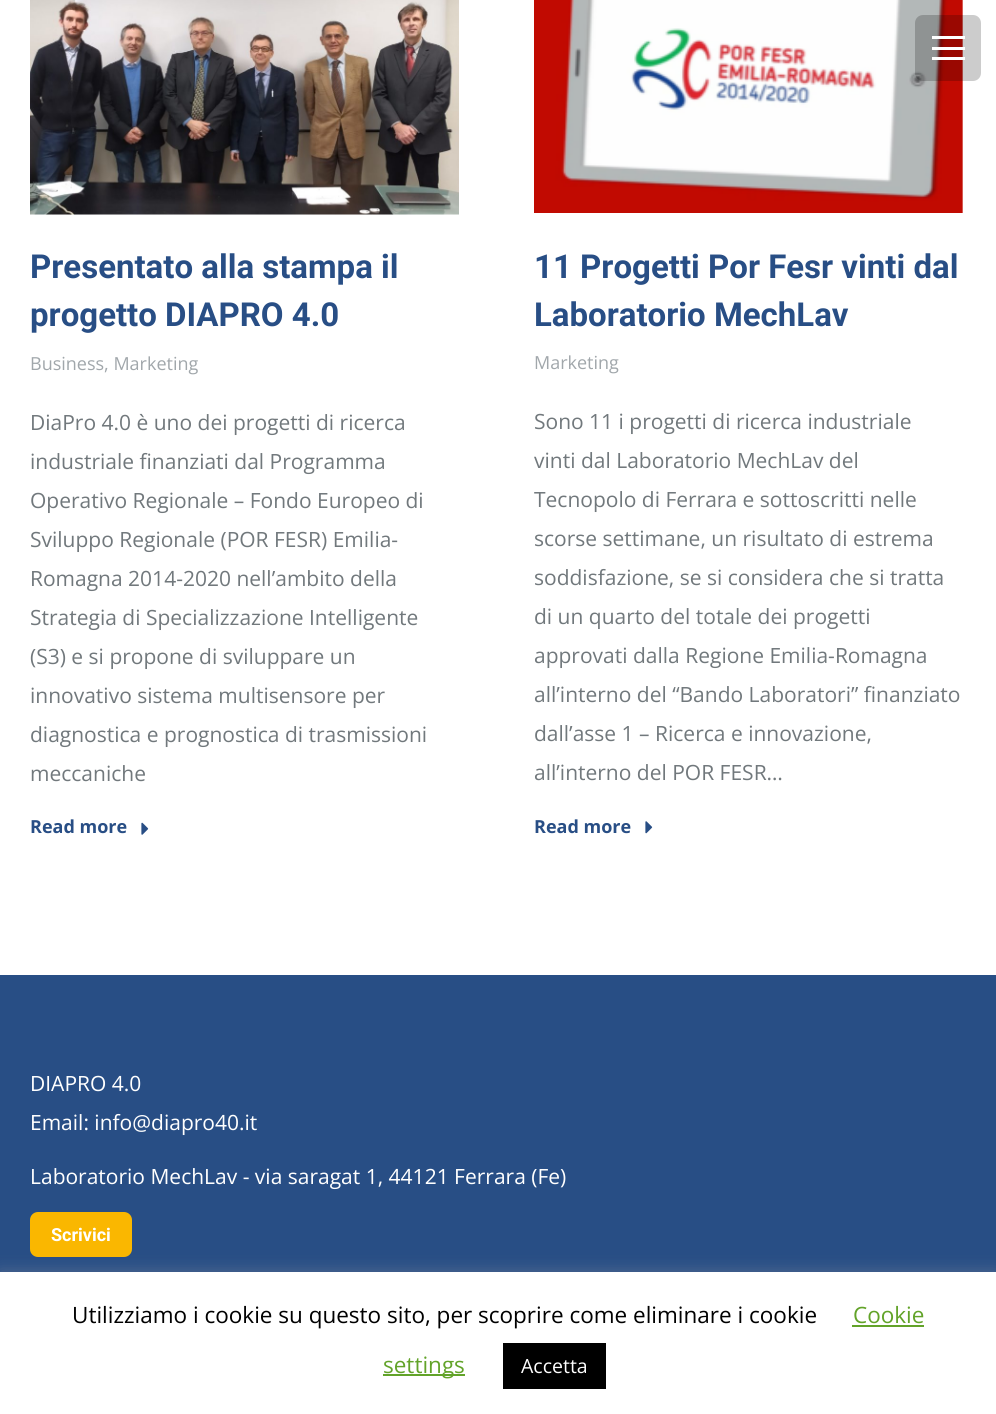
#include <cairo.h>
#include <math.h>
#include <stddef.h>


static void set_color(cairo_t *cr, unsigned color) {
    cairo_set_source_rgb(cr, (color >> 16) / 255.0, (color >> 8 & 255) / 255.0, (color & 255) / 255.0);
}

static void draw_text(cairo_t *cr, double x, double y, const char *s, const char *family, double size, int italic, int bold, unsigned color) {
    cairo_select_font_face(cr, family, italic ? CAIRO_FONT_SLANT_ITALIC : CAIRO_FONT_SLANT_NORMAL,
        bold ? CAIRO_FONT_WEIGHT_BOLD : CAIRO_FONT_WEIGHT_NORMAL);
    cairo_set_font_size(cr, size);
    set_color(cr, color);
    cairo_move_to(cr, x, y);
    cairo_show_text(cr, s);
}

static void fill_rect(cairo_t *cr, double x, double y, double w, double h, unsigned color) {
    set_color(cr, color);
    cairo_rectangle(cr, x, y, w, h);
    cairo_fill(cr);
}

static void rounded_rect(cairo_t *cr, double x, double y, double w, double h, double r) {
    cairo_new_sub_path(cr);
    cairo_arc(cr, x + w - r, y + h - r, r, 0, M_PI / 2);
    cairo_arc(cr, x + r, y + h - r, r, M_PI / 2, M_PI);
    cairo_arc(cr, x + r, y + r, r, M_PI, 1.5 * M_PI);
    cairo_arc(cr, x + w - r, y + r, r, 1.5 * M_PI, 2 * M_PI);
    cairo_close_path(cr);
}

static void draw_shadow(cairo_t *cr, double x, double y, double w, double h, double r, double blur, double alpha) {
    cairo_push_group_with_content(cr, CAIRO_CONTENT_ALPHA);
    cairo_set_operator(cr, CAIRO_OPERATOR_SOURCE);
    for (int i = 15; i >= -15 && fmin(w, h) + blur * i / 3 > 0; i -= 2) {
        double e = blur * i / 6;
        cairo_set_source_rgba(cr, 0, 0, 0, alpha * erfc((i - 1) / 8.5) / 2);
        rounded_rect(cr, x - e, y - e, w + 2 * e, h + 2 * e, fmax(0, fmin(r + e + blur * .6, fmin(w, h) / 2 + e)));
        cairo_fill(cr);
    }
    cairo_pattern_t *soft = cairo_pop_group(cr);
    cairo_mask(cr, soft);
    cairo_pattern_destroy(soft);
}

static void draw_image(cairo_t *cr, const char *path, double x, double y, double w, double h) {
    cairo_surface_t *image = cairo_image_surface_create_from_png(path);
    cairo_save(cr);
    cairo_set_source_surface(cr, image, x, y);
    cairo_rectangle(cr, x, y, w, h);
    cairo_fill(cr);
    cairo_restore(cr);
    cairo_surface_destroy(image);
}

int main(void) {
    cairo_surface_t *surface = cairo_image_surface_create(CAIRO_FORMAT_RGB24, 996, 1414);
    cairo_t *cr = cairo_create(surface);
    cairo_font_options_t *options = cairo_font_options_create();
    cairo_font_options_set_hint_metrics(options, CAIRO_HINT_METRICS_OFF);
    cairo_font_options_set_hint_style(options, CAIRO_HINT_STYLE_NONE);
    cairo_set_font_options(cr, options);
    cairo_set_miter_limit(cr, 4);
    set_color(cr, 0xFFFFFF);
    cairo_paint(cr);
    draw_image(cr, "assets/img3.png", 534, 0, 429, 213);
    cairo_set_source_rgba(cr, 0, 0, 0, 0.2);
    rounded_rect(cr, 915, 15, 66, 66, 8);
    cairo_fill(cr);
    fill_rect(cr, 932, 47, 33, 3, 0xFFFFFF);
    fill_rect(cr, 932, 36, 33, 3, 0xFFFFFF);
    fill_rect(cr, 932, 57, 33, 3, 0xFFFFFF);
    draw_image(cr, "assets/img1.png", 30, 0, 429, 215);
    draw_text(cr, 30, 278, "Presentato alla stampa il", "Roboto", 33, 0, 1, 0x284E85);
    draw_text(cr, 30, 326, "progetto DIAPRO 4.0", "Roboto", 33, 0, 1, 0x284E85);
    draw_text(cr, 30, 370, "Business, Marketing", "Open Sans", 18, 0, 0, 0xA1A7AB);
    draw_text(cr, 30, 430, "DiaPro 4.0 è uno dei progetti di ricerca", "Open Sans", 21, 0, 0, 0x71787C);
    draw_text(cr, 30, 469, "industriale finanziati dal Programma", "Open Sans", 21, 0, 0, 0x71787C);
    draw_text(cr, 30, 508, "Operativo Regionale – Fondo Europeo di", "Open Sans", 21, 0, 0, 0x71787C);
    draw_text(cr, 30, 547, "Sviluppo Regionale (POR FESR) Emilia-", "Open Sans", 21, 0, 0, 0x71787C);
    draw_text(cr, 30, 586, "Romagna 2014-2020 nell’ambito della", "Open Sans", 21, 0, 0, 0x71787C);
    draw_text(cr, 30, 625, "Strategia di Specializzazione Intelligente", "Open Sans", 21, 0, 0, 0x71787C);
    draw_text(cr, 30, 664, "(S3) e si propone di sviluppare un", "Open Sans", 21, 0, 0, 0x71787C);
    draw_text(cr, 30, 703, "innovativo sistema multisensore per", "Open Sans", 21, 0, 0, 0x71787C);
    draw_text(cr, 30, 742, "diagnostica e prognostica di trasmissioni", "Open Sans", 21, 0, 0, 0x71787C);
    draw_text(cr, 30, 781, "meccaniche", "Open Sans", 21, 0, 0, 0x71787C);
    draw_text(cr, 30, 833, "Read more", "Open Sans", 18, 0, 1, 0x284E85);
    draw_image(cr, "assets/img2.png", 141, 822, 8, 13);
    draw_text(cr, 534, 278, "11 Progetti Por Fesr vinti dal", "Roboto", 33, 0, 1, 0x284E85);
    draw_text(cr, 534, 326, "Laboratorio MechLav", "Roboto", 33, 0, 1, 0x284E85);
    draw_text(cr, 534, 369, "Marketing", "Open Sans", 18, 0, 0, 0xA1A7AB);
    draw_text(cr, 534, 429, "Sono 11 i progetti di ricerca industriale", "Open Sans", 21, 0, 0, 0x71787C);
    draw_text(cr, 534, 468, "vinti dal Laboratorio MechLav del", "Open Sans", 21, 0, 0, 0x71787C);
    draw_text(cr, 534, 507, "Tecnopolo di Ferrara e sottoscritti nelle", "Open Sans", 21, 0, 0, 0x71787C);
    draw_text(cr, 534, 546, "scorse settimane, un risultato di estrema", "Open Sans", 21, 0, 0, 0x71787C);
    draw_text(cr, 534, 585, "soddisfazione, se si considera che si tratta", "Open Sans", 21, 0, 0, 0x71787C);
    draw_text(cr, 534, 624, "di un quarto del totale dei progetti", "Open Sans", 21, 0, 0, 0x71787C);
    draw_text(cr, 534, 663, "approvati dalla Regione Emilia-Romagna", "Open Sans", 21, 0, 0, 0x71787C);
    draw_text(cr, 534, 702, "all’interno del “Bando Laboratori” finanziato", "Open Sans", 21, 0, 0, 0x71787C);
    draw_text(cr, 534, 741, "dall’asse 1 – Ricerca e innovazione,", "Open Sans", 21, 0, 0, 0x71787C);
    draw_text(cr, 534, 780, "all’interno del POR FESR…", "Open Sans", 21, 0, 0, 0x71787C);
    draw_text(cr, 534, 833, "Read more", "Open Sans", 18, 0, 1, 0x284E85);
    draw_image(cr, "assets/img4.png", 645, 821, 8, 13);
    fill_rect(cr, 0, 975, 996, 297, 0x284E85);
    draw_text(cr, 30, 1091, "DIAPRO 4.0", "Open Sans", 21, 0, 0, 0xFFFFFF);
    draw_text(cr, 30, 1130, "Email: info@diapro40.it", "Open Sans", 21, 0, 0, 0xFFFFFF);
    draw_text(cr, 30, 1184, "Laboratorio MechLav - via saragat 1, 44121 Ferrara (Fe)", "Open Sans", 21, 0, 0, 0xFFFFFF);
    set_color(cr, 0xFAB700);
    rounded_rect(cr, 30, 1212, 102, 45, 8);
    cairo_fill(cr);
    draw_text(cr, 51, 1241, "Scrivici", "Roboto", 18, 0, 1, 0xFFFFFF);
    set_color(cr, 0xACABAB);
    draw_shadow(cr, 0, 1271, 996, 142, 0, 7.5, 0.3);
    fill_rect(cr, 0, 1272, 996, 142, 0xFFFFFF);
    draw_text(cr, 72, 1323, "Utilizziamo i cookie su questo sito, per scoprire come eliminare i cookie", "Open Sans", 22.5, 0, 0, 0x000000);
    draw_text(cr, 853, 1323, "Cookie", "Open Sans", 22.5, 0, 0, 0x62A329);
    fill_rect(cr, 852, 1325, 72, 2, 0x62A329);
    fill_rect(cr, 383, 1374, 82, 2, 0x62A329);
    draw_text(cr, 383, 1373, "settings", "Open Sans", 22.5, 0, 0, 0x62A329);
    fill_rect(cr, 503, 1343, 103, 46, 0x000000);
    draw_text(cr, 521, 1373, "Accetta", "Open Sans", 19.5, 0, 0, 0xFFFFFF);
    cairo_surface_write_to_png(surface, "output.png");
    cairo_font_options_destroy(options);
    cairo_destroy(cr);
    cairo_surface_destroy(surface);
    return 0;
}
